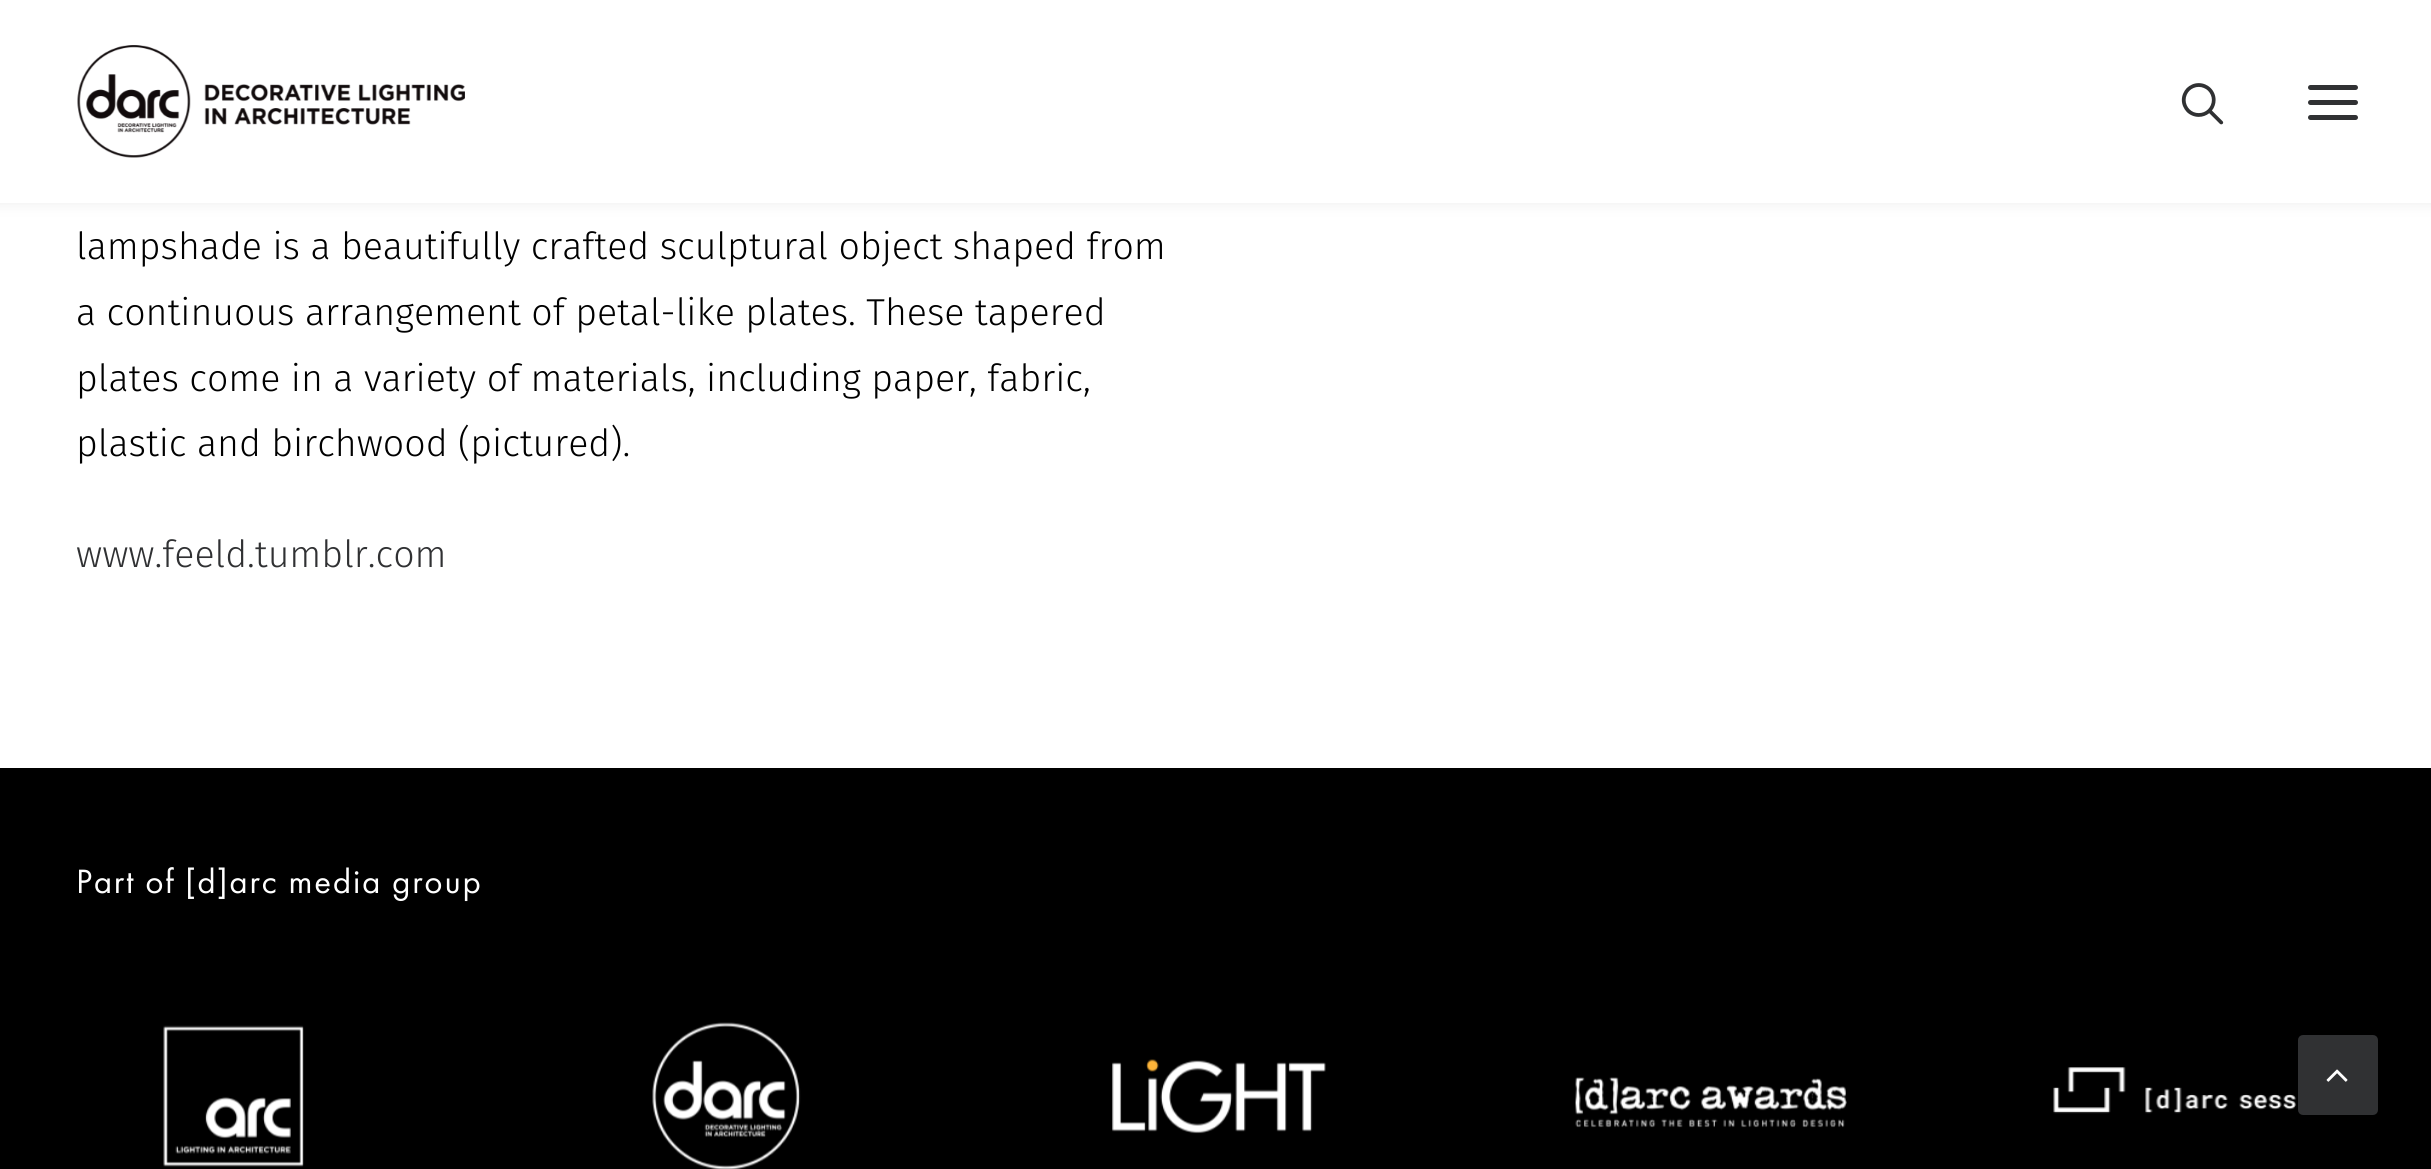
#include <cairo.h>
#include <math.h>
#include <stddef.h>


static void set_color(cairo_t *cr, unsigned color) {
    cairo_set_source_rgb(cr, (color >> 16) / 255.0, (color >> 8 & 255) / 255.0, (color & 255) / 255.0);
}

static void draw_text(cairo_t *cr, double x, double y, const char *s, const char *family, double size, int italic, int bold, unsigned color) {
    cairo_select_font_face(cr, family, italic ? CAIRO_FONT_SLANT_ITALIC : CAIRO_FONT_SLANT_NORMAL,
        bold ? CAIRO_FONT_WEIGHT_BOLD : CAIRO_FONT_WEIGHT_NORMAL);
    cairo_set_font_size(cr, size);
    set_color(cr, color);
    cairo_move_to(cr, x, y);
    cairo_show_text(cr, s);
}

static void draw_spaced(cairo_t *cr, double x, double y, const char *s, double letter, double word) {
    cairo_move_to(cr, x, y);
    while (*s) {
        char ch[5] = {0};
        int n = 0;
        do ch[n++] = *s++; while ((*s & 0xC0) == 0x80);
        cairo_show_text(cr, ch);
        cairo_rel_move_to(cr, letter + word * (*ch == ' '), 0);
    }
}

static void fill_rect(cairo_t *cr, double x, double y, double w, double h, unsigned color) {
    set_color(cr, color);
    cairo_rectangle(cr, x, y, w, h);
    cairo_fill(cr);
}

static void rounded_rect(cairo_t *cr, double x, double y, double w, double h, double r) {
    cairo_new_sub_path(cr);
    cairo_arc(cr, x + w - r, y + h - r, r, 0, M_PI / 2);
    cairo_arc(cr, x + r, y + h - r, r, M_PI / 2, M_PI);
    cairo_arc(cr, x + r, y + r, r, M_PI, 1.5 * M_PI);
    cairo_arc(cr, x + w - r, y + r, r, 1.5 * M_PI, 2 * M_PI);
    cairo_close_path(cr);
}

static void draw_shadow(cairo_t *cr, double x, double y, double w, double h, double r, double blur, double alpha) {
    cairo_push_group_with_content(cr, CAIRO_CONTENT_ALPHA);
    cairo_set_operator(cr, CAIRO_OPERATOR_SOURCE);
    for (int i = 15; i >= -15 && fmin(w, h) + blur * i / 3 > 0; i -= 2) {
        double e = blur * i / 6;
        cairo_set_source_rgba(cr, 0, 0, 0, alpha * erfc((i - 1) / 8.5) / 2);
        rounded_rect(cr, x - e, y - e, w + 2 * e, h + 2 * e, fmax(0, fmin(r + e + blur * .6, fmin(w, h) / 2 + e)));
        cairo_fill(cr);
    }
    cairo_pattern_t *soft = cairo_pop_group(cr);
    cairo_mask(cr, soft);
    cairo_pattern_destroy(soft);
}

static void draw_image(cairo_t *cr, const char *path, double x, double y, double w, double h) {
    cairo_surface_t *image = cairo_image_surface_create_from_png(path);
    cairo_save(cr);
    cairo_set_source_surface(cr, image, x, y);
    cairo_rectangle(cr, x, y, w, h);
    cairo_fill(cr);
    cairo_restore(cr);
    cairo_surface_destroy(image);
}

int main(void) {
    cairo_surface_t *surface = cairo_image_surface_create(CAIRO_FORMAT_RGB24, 2431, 1169);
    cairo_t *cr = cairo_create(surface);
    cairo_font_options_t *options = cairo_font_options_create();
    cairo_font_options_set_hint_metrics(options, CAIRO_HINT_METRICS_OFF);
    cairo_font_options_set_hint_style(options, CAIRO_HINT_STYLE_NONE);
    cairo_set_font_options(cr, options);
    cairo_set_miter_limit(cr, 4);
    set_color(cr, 0xFFFFFF);
    cairo_paint(cr);
    set_color(cr, 0x000000);
    draw_shadow(cr, -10, 3, 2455, 197, 0, 9, 0.1);
    fill_rect(cr, 0, 0, 2431, 203, 0xFFFFFF);
    draw_image(cr, "assets/img1.png", 77, 45, 388, 113);
    draw_image(cr, "assets/img2.png", 2181, 83, 43, 42);
    set_color(cr, 0x303133);
    rounded_rect(cr, 2308, 100, 50, 5, 2.5);
    cairo_fill(cr);
    rounded_rect(cr, 2308, 85, 50, 5, 2.5);
    cairo_fill(cr);
    rounded_rect(cr, 2308, 115, 50, 5, 2.5);
    cairo_fill(cr);
    draw_text(cr, 76, 259, "lampshade is a beautifully crafted sculptural object shaped from", "Fira Sans Light", 37.5, 0, 0, 0x000000);
    draw_text(cr, 76, 325, "a continuous arrangement of petal-like plates. These tapered", "Fira Sans Light", 37.5, 0, 0, 0x000000);
    draw_text(cr, 76, 391, "plates come in a variety of materials, including paper, fabric,", "Fira Sans Light", 37.5, 0, 0, 0x000000);
    draw_text(cr, 76, 456, "plastic and birchwood (pictured).", "Fira Sans Light", 37.5, 0, 0, 0x000000);
    draw_text(cr, 76, 567, "www.feeld.tumblr.com", "Fira Sans Light", 37.5, 0, 0, 0x303133);
    fill_rect(cr, 0, 768, 2431, 401, 0x000000);
    cairo_select_font_face(cr, "Futura PT", CAIRO_FONT_SLANT_NORMAL, CAIRO_FONT_WEIGHT_NORMAL);
    cairo_set_font_size(cr, 35);
    set_color(cr, 0xFFFFFF);
    draw_spaced(cr, 76, 893, "Part of [d]arc media group", 1.75, 0);
    draw_image(cr, "assets/img3.png", 163, 1025, 141, 142);
    draw_image(cr, "assets/img4.png", 652, 1022, 149, 147);
    draw_image(cr, "assets/img5.png", 1112, 1059, 214, 75);
    draw_image(cr, "assets/img6.png", 1575, 1077, 272, 51);
    draw_image(cr, "assets/img7.png", 2053, 1067, 244, 47);
    set_color(cr, 0x303133);
    rounded_rect(cr, 2299.5, 1036.5, 77, 77, 3.5);
    cairo_fill_preserve(cr);
    cairo_set_line_width(cr, 3);
    cairo_stroke(cr);
    draw_image(cr, "assets/img8.png", 2326, 1069, 22, 13);
    cairo_surface_write_to_png(surface, "output.png");
    cairo_font_options_destroy(options);
    cairo_destroy(cr);
    cairo_surface_destroy(surface);
    return 0;
}
